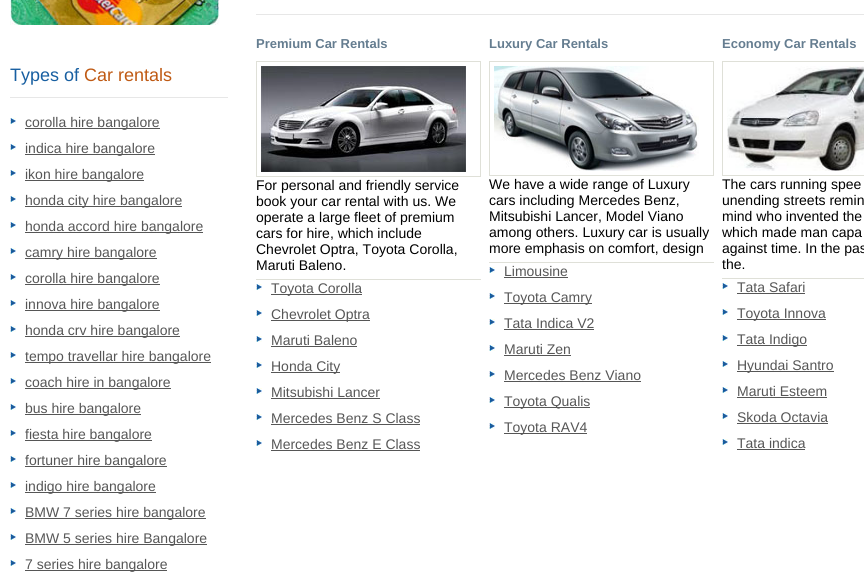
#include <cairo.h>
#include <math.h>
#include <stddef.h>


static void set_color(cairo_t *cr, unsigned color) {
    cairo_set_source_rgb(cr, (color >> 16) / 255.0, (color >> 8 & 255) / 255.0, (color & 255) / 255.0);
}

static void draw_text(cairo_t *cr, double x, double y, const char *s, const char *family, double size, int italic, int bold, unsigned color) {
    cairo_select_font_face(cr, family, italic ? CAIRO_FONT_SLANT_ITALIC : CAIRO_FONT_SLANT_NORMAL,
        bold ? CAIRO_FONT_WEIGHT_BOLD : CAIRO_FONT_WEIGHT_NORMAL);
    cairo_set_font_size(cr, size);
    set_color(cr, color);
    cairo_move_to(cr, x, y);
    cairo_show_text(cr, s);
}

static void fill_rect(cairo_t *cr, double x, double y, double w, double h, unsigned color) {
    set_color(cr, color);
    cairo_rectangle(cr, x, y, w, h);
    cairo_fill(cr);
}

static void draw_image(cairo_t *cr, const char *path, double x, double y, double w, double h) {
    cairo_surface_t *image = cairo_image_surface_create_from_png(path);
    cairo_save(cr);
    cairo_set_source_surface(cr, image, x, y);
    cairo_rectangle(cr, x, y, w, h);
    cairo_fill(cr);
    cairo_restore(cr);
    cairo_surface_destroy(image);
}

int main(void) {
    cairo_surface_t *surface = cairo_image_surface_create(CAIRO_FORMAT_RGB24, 864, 586);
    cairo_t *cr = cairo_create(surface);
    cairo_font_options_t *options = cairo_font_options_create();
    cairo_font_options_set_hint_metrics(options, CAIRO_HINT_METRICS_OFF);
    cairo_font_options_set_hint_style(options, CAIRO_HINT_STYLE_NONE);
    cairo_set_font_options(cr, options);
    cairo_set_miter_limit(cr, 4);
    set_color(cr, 0xFFFFFF);
    cairo_paint(cr);
    draw_image(cr, "assets/img1.png", 10, 0, 210, 25);
    fill_rect(cr, 10, 97, 218, 1, 0xE7E7E7);
    draw_text(cr, 10, 81, "Types of", "Liberation Sans", 18, 0, 0, 0x185FA1);
    draw_text(cr, 84, 81, "Car rentals", "Liberation Sans", 18, 0, 0, 0xBF5A14);
    draw_image(cr, "assets/img2.png", 10, 118, 6, 6);
    fill_rect(cr, 25, 128, 135, 1, 0x565656);
    draw_text(cr, 25, 127, "corolla hire bangalore", "Liberation Sans", 14, 0, 0, 0x565656);
    draw_image(cr, "assets/img2.png", 10, 144, 6, 6);
    fill_rect(cr, 25, 154, 130, 1, 0x565656);
    draw_text(cr, 25, 153, "indica hire bangalore", "Liberation Sans", 14, 0, 0, 0x565656);
    draw_image(cr, "assets/img2.png", 10, 170, 6, 6);
    fill_rect(cr, 25, 180, 119, 1, 0x565656);
    draw_text(cr, 25, 179, "ikon hire bangalore", "Liberation Sans", 14, 0, 0, 0x565656);
    draw_image(cr, "assets/img2.png", 10, 196, 6, 6);
    fill_rect(cr, 25, 206, 157, 1, 0x565656);
    draw_text(cr, 25, 205, "honda city hire bangalore", "Liberation Sans", 14, 0, 0, 0x565656);
    draw_image(cr, "assets/img2.png", 10, 222, 6, 6);
    fill_rect(cr, 25, 232, 178, 1, 0x565656);
    draw_text(cr, 25, 231, "honda accord hire bangalore", "Liberation Sans", 14, 0, 0, 0x565656);
    draw_image(cr, "assets/img2.png", 10, 248, 6, 6);
    fill_rect(cr, 25, 258, 132, 1, 0x565656);
    draw_text(cr, 25, 257, "camry hire bangalore", "Liberation Sans", 14, 0, 0, 0x565656);
    draw_image(cr, "assets/img2.png", 10, 274, 6, 6);
    fill_rect(cr, 25, 284, 135, 1, 0x565656);
    draw_text(cr, 25, 283, "corolla hire bangalore", "Liberation Sans", 14, 0, 0, 0x565656);
    draw_image(cr, "assets/img2.png", 10, 300, 6, 6);
    fill_rect(cr, 25, 310, 135, 1, 0x565656);
    draw_text(cr, 25, 309, "innova hire bangalore", "Liberation Sans", 14, 0, 0, 0x565656);
    draw_image(cr, "assets/img2.png", 10, 326, 6, 6);
    fill_rect(cr, 25, 336, 155, 1, 0x565656);
    draw_text(cr, 25, 335, "honda crv hire bangalore", "Liberation Sans", 14, 0, 0, 0x565656);
    draw_image(cr, "assets/img2.png", 10, 352, 6, 6);
    fill_rect(cr, 25, 362, 186, 1, 0x565656);
    draw_text(cr, 25, 361, "tempo travellar hire bangalore", "Liberation Sans", 14, 0, 0, 0x565656);
    draw_image(cr, "assets/img2.png", 10, 378, 6, 6);
    fill_rect(cr, 25, 388, 146, 1, 0x565656);
    draw_text(cr, 25, 387, "coach hire in bangalore", "Liberation Sans", 14, 0, 0, 0x565656);
    draw_image(cr, "assets/img2.png", 10, 404, 6, 6);
    fill_rect(cr, 25, 414, 116, 1, 0x565656);
    draw_text(cr, 25, 413, "bus hire bangalore", "Liberation Sans", 14, 0, 0, 0x565656);
    draw_image(cr, "assets/img2.png", 10, 430, 6, 6);
    fill_rect(cr, 25, 440, 127, 1, 0x565656);
    draw_text(cr, 25, 439, "fiesta hire bangalore", "Liberation Sans", 14, 0, 0, 0x565656);
    draw_image(cr, "assets/img2.png", 10, 456, 6, 6);
    fill_rect(cr, 25, 466, 142, 1, 0x565656);
    draw_text(cr, 25, 465, "fortuner hire bangalore", "Liberation Sans", 14, 0, 0, 0x565656);
    draw_image(cr, "assets/img2.png", 10, 482, 6, 6);
    fill_rect(cr, 25, 492, 131, 1, 0x565656);
    draw_text(cr, 25, 491, "indigo hire bangalore", "Liberation Sans", 14, 0, 0, 0x565656);
    draw_image(cr, "assets/img2.png", 10, 508, 6, 6);
    fill_rect(cr, 25, 518, 181, 1, 0x565656);
    draw_text(cr, 25, 517, "BMW 7 series hire bangalore", "Liberation Sans", 14, 0, 0, 0x565656);
    draw_image(cr, "assets/img2.png", 10, 534, 6, 6);
    fill_rect(cr, 25, 544, 182, 1, 0x565656);
    draw_text(cr, 25, 543, "BMW 5 series hire Bangalore", "Liberation Sans", 14, 0, 0, 0x565656);
    draw_image(cr, "assets/img2.png", 10, 560, 6, 6);
    fill_rect(cr, 25, 570, 142, 1, 0x565656);
    draw_text(cr, 25, 569, "7 series hire bangalore", "Liberation Sans", 14, 0, 0, 0x565656);
    fill_rect(cr, 256, 14, 608, 1, 0xE7E7E7);
    draw_text(cr, 256, 48, "Premium Car Rentals", "Liberation Sans", 13, 0, 1, 0x657D90);
    cairo_rectangle(cr, 256.5, 61.5, 224, 115);
    set_color(cr, 0xDFE0D8);
    cairo_set_line_width(cr, 1);
    cairo_stroke(cr);
    draw_image(cr, "assets/img3.png", 261, 66, 205, 106);
    fill_rect(cr, 256, 279, 225, 1, 0xDFE0D8);
    draw_text(cr, 256, 190, "For personal and friendly service", "Liberation Sans", 14, 0, 0, 0x000000);
    draw_text(cr, 256, 206, "book your car rental with us. We", "Liberation Sans", 14, 0, 0, 0x000000);
    draw_text(cr, 256, 222, "operate a large fleet of premium", "Liberation Sans", 14, 0, 0, 0x000000);
    draw_text(cr, 256, 238, "cars for hire, which include", "Liberation Sans", 14, 0, 0, 0x000000);
    draw_text(cr, 256, 254, "Chevrolet Optra, Toyota Corolla,", "Liberation Sans", 14, 0, 0, 0x000000);
    draw_text(cr, 256, 270, "Maruti Baleno.", "Liberation Sans", 14, 0, 0, 0x000000);
    draw_image(cr, "assets/img2.png", 256, 284, 6, 6);
    fill_rect(cr, 271, 294, 91, 1, 0x565656);
    draw_text(cr, 271, 293, "Toyota Corolla", "Liberation Sans", 14, 0, 0, 0x565656);
    draw_image(cr, "assets/img2.png", 256, 310, 6, 6);
    fill_rect(cr, 271, 320, 99, 1, 0x565656);
    draw_text(cr, 271, 319, "Chevrolet Optra", "Liberation Sans", 14, 0, 0, 0x565656);
    draw_image(cr, "assets/img2.png", 256, 336, 6, 6);
    draw_text(cr, 271, 345, "Maruti Baleno", "Liberation Sans", 14, 0, 0, 0x565656);
    fill_rect(cr, 271, 346, 86, 1, 0x565656);
    draw_image(cr, "assets/img2.png", 256, 362, 6, 6);
    fill_rect(cr, 271, 372, 69, 1, 0x565656);
    draw_text(cr, 271, 371, "Honda City", "Liberation Sans", 14, 0, 0, 0x565656);
    draw_image(cr, "assets/img2.png", 256, 388, 6, 6);
    draw_text(cr, 271, 397, "Mitsubishi Lancer", "Liberation Sans", 14, 0, 0, 0x565656);
    fill_rect(cr, 271, 398, 109, 1, 0x565656);
    draw_image(cr, "assets/img2.png", 256, 414, 6, 6);
    draw_text(cr, 271, 423, "Mercedes Benz S Class", "Liberation Sans", 14, 0, 0, 0x565656);
    fill_rect(cr, 271, 424, 149, 1, 0x565656);
    draw_image(cr, "assets/img2.png", 256, 440, 6, 6);
    draw_text(cr, 271, 449, "Mercedes Benz E Class", "Liberation Sans", 14, 0, 0, 0x565656);
    fill_rect(cr, 271, 450, 149, 1, 0x565656);
    draw_text(cr, 489, 48, "Luxury Car Rentals", "Liberation Sans", 13, 0, 1, 0x657D90);
    cairo_rectangle(cr, 489.5, 61.5, 224, 114);
    set_color(cr, 0xDFE0D8);
    cairo_stroke(cr);
    draw_image(cr, "assets/img4.png", 494, 66, 205, 105);
    fill_rect(cr, 489, 262, 225, 1, 0xDFE0D8);
    draw_text(cr, 489, 189, "We have a wide range of Luxury", "Liberation Sans", 14, 0, 0, 0x000000);
    draw_text(cr, 489, 205, "cars including Mercedes Benz,", "Liberation Sans", 14, 0, 0, 0x000000);
    draw_text(cr, 489, 221, "Mitsubishi Lancer, Model Viano", "Liberation Sans", 14, 0, 0, 0x000000);
    draw_text(cr, 489, 237, "among others. Luxury car is usually", "Liberation Sans", 14, 0, 0, 0x000000);
    draw_text(cr, 489, 253, "more emphasis on comfort, design", "Liberation Sans", 14, 0, 0, 0x000000);
    draw_image(cr, "assets/img2.png", 489, 267, 6, 6);
    draw_text(cr, 504, 276, "Limousine", "Liberation Sans", 14, 0, 0, 0x565656);
    fill_rect(cr, 504, 277, 64, 1, 0x565656);
    draw_image(cr, "assets/img2.png", 489, 293, 6, 6);
    fill_rect(cr, 504, 303, 88, 1, 0x565656);
    draw_text(cr, 504, 302, "Toyota Camry", "Liberation Sans", 14, 0, 0, 0x565656);
    draw_image(cr, "assets/img2.png", 489, 319, 6, 6);
    draw_text(cr, 504, 328, "Tata Indica V2", "Liberation Sans", 14, 0, 0, 0x565656);
    fill_rect(cr, 504, 329, 90, 1, 0x565656);
    draw_image(cr, "assets/img2.png", 489, 345, 6, 6);
    draw_text(cr, 504, 354, "Maruti Zen", "Liberation Sans", 14, 0, 0, 0x565656);
    fill_rect(cr, 504, 355, 67, 1, 0x565656);
    draw_image(cr, "assets/img2.png", 489, 371, 6, 6);
    draw_text(cr, 504, 380, "Mercedes Benz Viano", "Liberation Sans", 14, 0, 0, 0x565656);
    fill_rect(cr, 504, 381, 137, 1, 0x565656);
    draw_image(cr, "assets/img2.png", 489, 397, 6, 6);
    fill_rect(cr, 504, 407, 86, 1, 0x565656);
    draw_text(cr, 504, 406, "Toyota Qualis", "Liberation Sans", 14, 0, 0, 0x565656);
    draw_image(cr, "assets/img2.png", 489, 423, 6, 6);
    fill_rect(cr, 504, 433, 83, 1, 0x565656);
    draw_text(cr, 504, 432, "Toyota RAV4", "Liberation Sans", 14, 0, 0, 0x565656);
    draw_text(cr, 722, 48, "Economy Car Rentals", "Liberation Sans", 13, 0, 1, 0x657D90);
    cairo_rectangle(cr, 722.5, 61.5, 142, 114);
    set_color(cr, 0xDFE0D8);
    cairo_stroke(cr);
    draw_image(cr, "assets/img5.png", 727, 66, 137, 105);
    fill_rect(cr, 722, 278, 142, 1, 0xDFE0D8);
    draw_text(cr, 722, 189, "The cars running spee", "Liberation Sans", 14, 0, 0, 0x000000);
    draw_text(cr, 722, 205, "unending streets remin", "Liberation Sans", 14, 0, 0, 0x000000);
    draw_text(cr, 722, 221, "mind who invented the", "Liberation Sans", 14, 0, 0, 0x000000);
    draw_text(cr, 722, 237, "which made man capa", "Liberation Sans", 14, 0, 0, 0x000000);
    draw_text(cr, 722, 253, "against time. In the pas", "Liberation Sans", 14, 0, 0, 0x000000);
    draw_text(cr, 722, 269, "the.", "Liberation Sans", 14, 0, 0, 0x000000);
    draw_image(cr, "assets/img2.png", 722, 283, 6, 6);
    draw_text(cr, 737, 292, "Tata Safari", "Liberation Sans", 14, 0, 0, 0x565656);
    fill_rect(cr, 737, 293, 68, 1, 0x565656);
    draw_image(cr, "assets/img2.png", 722, 309, 6, 6);
    fill_rect(cr, 737, 319, 89, 1, 0x565656);
    draw_text(cr, 737, 318, "Toyota Innova", "Liberation Sans", 14, 0, 0, 0x565656);
    draw_image(cr, "assets/img2.png", 722, 335, 6, 6);
    fill_rect(cr, 737, 345, 70, 1, 0x565656);
    draw_text(cr, 737, 344, "Tata Indigo", "Liberation Sans", 14, 0, 0, 0x565656);
    draw_image(cr, "assets/img2.png", 722, 361, 6, 6);
    fill_rect(cr, 737, 371, 97, 1, 0x565656);
    draw_text(cr, 737, 370, "Hyundai Santro", "Liberation Sans", 14, 0, 0, 0x565656);
    draw_image(cr, "assets/img2.png", 722, 387, 6, 6);
    draw_text(cr, 737, 396, "Maruti Esteem", "Liberation Sans", 14, 0, 0, 0x565656);
    fill_rect(cr, 737, 397, 90, 1, 0x565656);
    draw_image(cr, "assets/img2.png", 722, 413, 6, 6);
    draw_text(cr, 737, 422, "Skoda Octavia", "Liberation Sans", 14, 0, 0, 0x565656);
    fill_rect(cr, 737, 423, 91, 1, 0x565656);
    draw_image(cr, "assets/img2.png", 722, 439, 6, 6);
    draw_text(cr, 737, 448, "Tata indica", "Liberation Sans", 14, 0, 0, 0x565656);
    fill_rect(cr, 737, 449, 68, 1, 0x565656);
    cairo_surface_write_to_png(surface, "output.png");
    cairo_font_options_destroy(options);
    cairo_destroy(cr);
    cairo_surface_destroy(surface);
    return 0;
}
